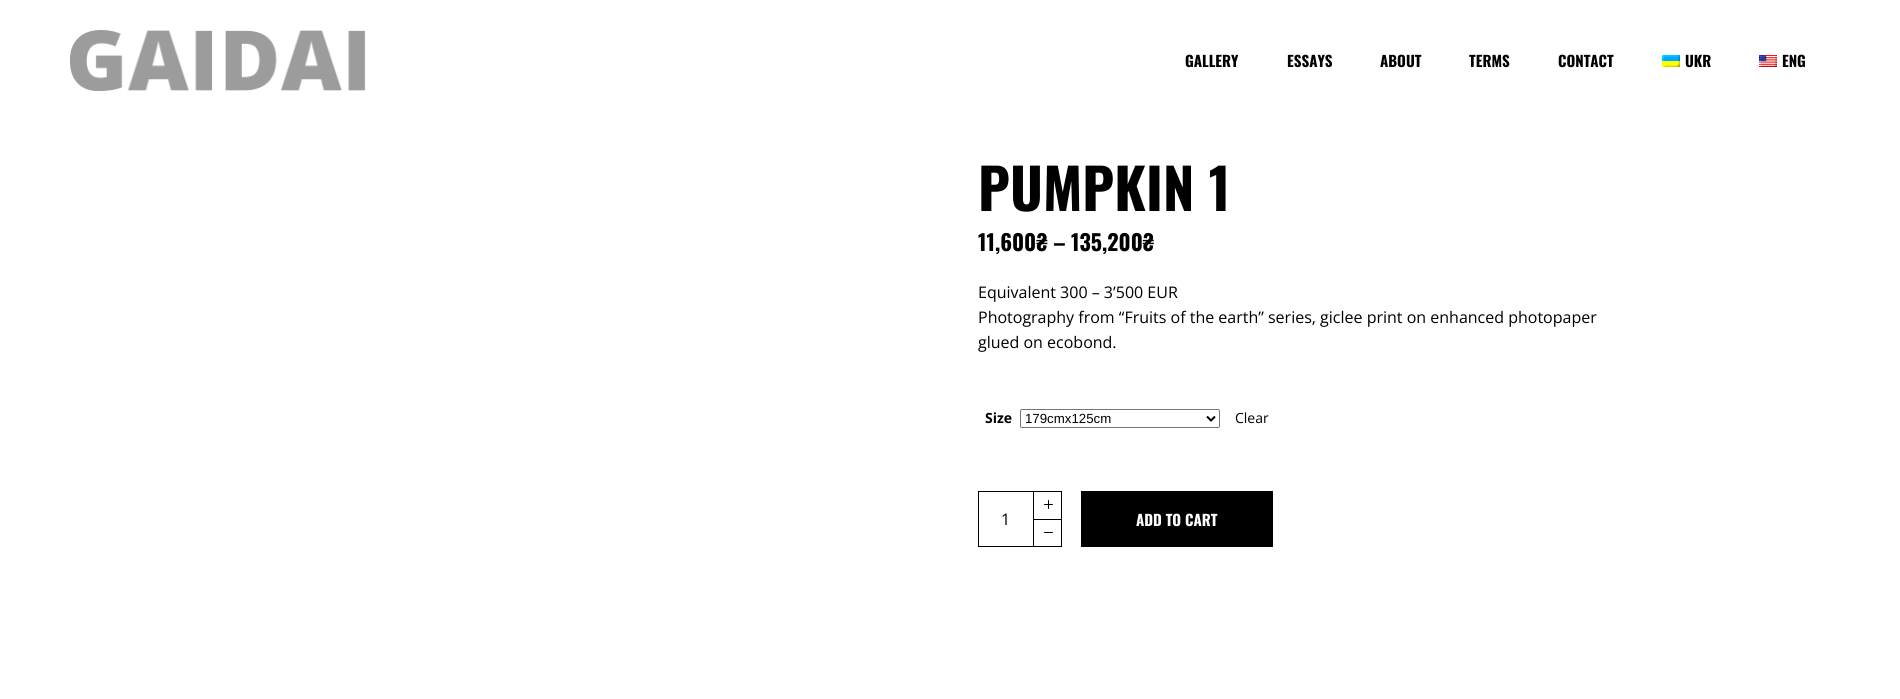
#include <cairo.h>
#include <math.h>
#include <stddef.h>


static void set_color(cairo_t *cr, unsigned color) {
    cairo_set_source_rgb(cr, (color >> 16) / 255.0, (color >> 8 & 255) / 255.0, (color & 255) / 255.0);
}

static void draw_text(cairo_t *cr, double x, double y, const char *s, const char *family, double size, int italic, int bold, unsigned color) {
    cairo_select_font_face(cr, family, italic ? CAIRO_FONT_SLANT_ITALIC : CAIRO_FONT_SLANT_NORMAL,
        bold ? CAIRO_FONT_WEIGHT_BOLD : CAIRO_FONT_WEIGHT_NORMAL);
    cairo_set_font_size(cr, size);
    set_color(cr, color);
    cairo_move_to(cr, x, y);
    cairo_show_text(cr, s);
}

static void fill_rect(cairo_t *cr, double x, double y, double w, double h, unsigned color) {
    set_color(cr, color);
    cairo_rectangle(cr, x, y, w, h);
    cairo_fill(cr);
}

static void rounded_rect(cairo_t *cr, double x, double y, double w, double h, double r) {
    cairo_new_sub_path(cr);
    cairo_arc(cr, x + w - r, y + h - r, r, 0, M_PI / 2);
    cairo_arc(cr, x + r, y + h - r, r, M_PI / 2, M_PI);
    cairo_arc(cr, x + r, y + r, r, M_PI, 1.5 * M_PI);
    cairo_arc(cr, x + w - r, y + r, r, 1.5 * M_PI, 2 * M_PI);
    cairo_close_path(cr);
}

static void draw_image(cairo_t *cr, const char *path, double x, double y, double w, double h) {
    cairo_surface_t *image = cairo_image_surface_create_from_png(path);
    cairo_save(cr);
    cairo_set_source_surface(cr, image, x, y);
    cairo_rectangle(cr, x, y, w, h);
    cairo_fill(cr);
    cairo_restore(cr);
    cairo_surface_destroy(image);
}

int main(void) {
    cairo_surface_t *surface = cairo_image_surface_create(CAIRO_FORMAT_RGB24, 1900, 699);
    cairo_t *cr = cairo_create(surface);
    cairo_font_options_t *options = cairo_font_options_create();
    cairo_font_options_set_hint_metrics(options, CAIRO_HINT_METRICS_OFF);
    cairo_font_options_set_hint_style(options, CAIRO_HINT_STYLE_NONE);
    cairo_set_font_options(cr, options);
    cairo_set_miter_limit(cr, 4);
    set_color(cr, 0xFFFFFF);
    cairo_paint(cr);
    draw_image(cr, "assets/img1.png", 70, 30, 296, 61);
    draw_text(cr, 1185, 67, "GALLERY", "Oswald", 15, 0, 1, 0x000000);
    draw_text(cr, 1287, 67, "ESSAYS", "Oswald", 15, 0, 1, 0x000000);
    draw_text(cr, 1380, 67, "ABOUT", "Oswald", 15, 0, 1, 0x000000);
    draw_text(cr, 1469, 67, "TERMS", "Oswald", 15, 0, 1, 0x000000);
    draw_text(cr, 1558, 67, "CONTACT", "Oswald", 15, 0, 1, 0x000000);
    draw_image(cr, "assets/img2.png", 1662, 55, 18, 12);
    draw_text(cr, 1685, 67, "UKR", "Oswald", 15, 0, 1, 0x000000);
    draw_image(cr, "assets/img3.png", 1759, 55, 18, 12);
    draw_text(cr, 1782, 67, "ENG", "Oswald", 15, 0, 1, 0x000000);
    draw_text(cr, 978, 211, "PUMPKIN 1", "Oswald", 56, 0, 1, 0x000000);
    draw_text(cr, 978, 251, "11,600₴ – 135,200₴", "Oswald", 22, 0, 1, 0x000000);
    draw_text(cr, 978, 298, "Equivalent 300 – 3’500 EUR", "Open Sans", 16, 0, 0, 0x000000);
    draw_text(cr, 978, 323, "Photography from “Fruits of the earth” series, giclee print on enhanced photopaper", "Open Sans", 16, 0, 0, 0x000000);
    draw_text(cr, 978, 348, "glued on ecobond.", "Open Sans", 16, 0, 0, 0x000000);
    draw_text(cr, 985, 423, "Size", "Open Sans", 14, 0, 1, 0x000000);
    rounded_rect(cr, 1020.5, 409.5, 199, 18, 1.5);
    set_color(cr, 0x767676);
    cairo_set_line_width(cr, 1);
    cairo_stroke(cr);
    cairo_new_path(cr);
    cairo_move_to(cr, 1207, 416.5);
    cairo_line_to(cr, 1211, 420.5);
    cairo_line_to(cr, 1215, 416.5);
    set_color(cr, 0x000000);
    cairo_set_line_width(cr, 2);
    cairo_stroke(cr);
    draw_text(cr, 1025, 423, "179cmx125cm", "Liberation Sans", 13.25, 0, 0, 0x000000);
    draw_text(cr, 1235, 423, "Clear", "Open Sans", 14, 0, 0, 0x000000);
    cairo_rectangle(cr, 978.5, 491.5, 55, 55);
    cairo_set_line_width(cr, 1);
    cairo_stroke(cr);
    draw_text(cr, 1001, 525, "1", "Open Sans", 16, 0, 0, 0x000000);
    fill_rect(cr, 1034, 491, 28, 1, 0x000000);
    fill_rect(cr, 1061, 491, 1, 28, 0x000000);
    draw_image(cr, "assets/img4.png", 1044, 500, 9, 9);
    fill_rect(cr, 1034, 519, 28, 1, 0x000000);
    fill_rect(cr, 1061, 519, 1, 28, 0x000000);
    fill_rect(cr, 1034, 546, 28, 1, 0x000000);
    draw_image(cr, "assets/img5.png", 1044, 532, 9, 1);
    fill_rect(cr, 1081, 491, 192, 56, 0x000000);
    draw_text(cr, 1136, 526, "ADD TO CART", "Oswald", 15, 0, 1, 0xFFFFFF);
    cairo_surface_write_to_png(surface, "output.png");
    cairo_font_options_destroy(options);
    cairo_destroy(cr);
    cairo_surface_destroy(surface);
    return 0;
}
